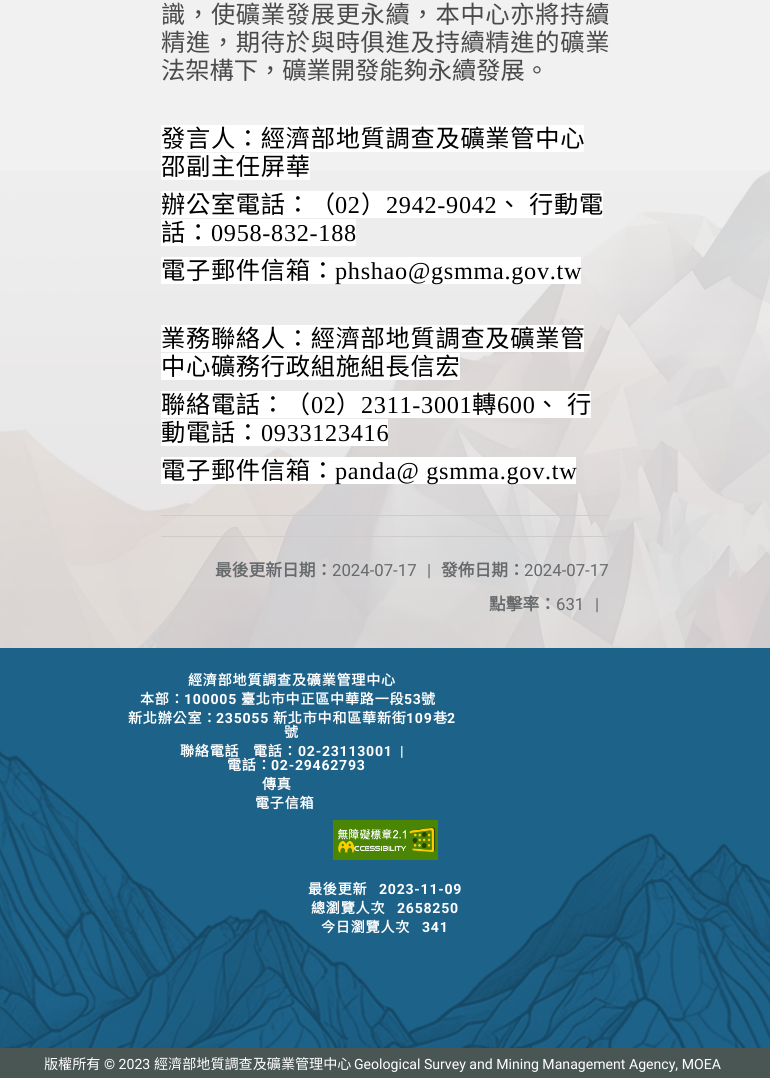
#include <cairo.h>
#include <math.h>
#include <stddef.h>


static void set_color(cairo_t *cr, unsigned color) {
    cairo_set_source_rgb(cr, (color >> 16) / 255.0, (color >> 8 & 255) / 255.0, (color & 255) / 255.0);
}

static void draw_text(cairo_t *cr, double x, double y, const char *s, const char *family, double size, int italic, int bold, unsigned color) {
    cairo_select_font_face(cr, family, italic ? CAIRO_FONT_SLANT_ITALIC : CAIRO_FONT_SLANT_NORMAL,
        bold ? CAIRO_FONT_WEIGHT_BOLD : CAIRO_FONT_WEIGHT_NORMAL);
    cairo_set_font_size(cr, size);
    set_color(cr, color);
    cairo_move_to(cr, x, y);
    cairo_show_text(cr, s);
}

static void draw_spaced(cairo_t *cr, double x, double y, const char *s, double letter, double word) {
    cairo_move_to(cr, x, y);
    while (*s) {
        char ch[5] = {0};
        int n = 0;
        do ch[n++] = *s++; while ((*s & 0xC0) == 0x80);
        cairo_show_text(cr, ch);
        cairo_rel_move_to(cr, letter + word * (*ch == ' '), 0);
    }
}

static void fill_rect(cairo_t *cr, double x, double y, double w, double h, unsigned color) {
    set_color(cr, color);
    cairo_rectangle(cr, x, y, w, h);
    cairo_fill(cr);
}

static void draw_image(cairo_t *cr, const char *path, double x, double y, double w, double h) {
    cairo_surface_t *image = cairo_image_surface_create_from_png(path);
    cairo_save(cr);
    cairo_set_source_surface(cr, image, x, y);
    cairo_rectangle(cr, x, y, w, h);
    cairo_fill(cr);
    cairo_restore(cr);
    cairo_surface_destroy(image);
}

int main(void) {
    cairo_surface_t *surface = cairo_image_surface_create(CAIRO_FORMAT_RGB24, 770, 1078);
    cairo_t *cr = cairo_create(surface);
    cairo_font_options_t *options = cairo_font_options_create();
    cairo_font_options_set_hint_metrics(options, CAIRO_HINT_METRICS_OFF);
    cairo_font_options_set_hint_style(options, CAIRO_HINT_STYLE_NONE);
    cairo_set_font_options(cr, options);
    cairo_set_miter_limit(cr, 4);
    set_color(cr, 0xF1F1F1);
    cairo_paint(cr);
    draw_image(cr, "assets/img1.png", 0, 170, 770, 478);
    cairo_select_font_face(cr, "Noto Sans CJK TC", CAIRO_FONT_SLANT_NORMAL, CAIRO_FONT_WEIGHT_NORMAL);
    cairo_set_font_size(cr, 24.25);
    set_color(cr, 0x4A4A4A);
    draw_spaced(cr, 161, 23, "識，使礦業發展更永續，本中心亦將持續", 0.7, 0);
    draw_spaced(cr, 161, 51, "精進，期待於與時俱進及持續精進的礦業", 0.7, 0);
    draw_text(cr, 161, 79, "法架構下，礦業開發能夠永續發展。", "Noto Sans CJK TC", 24.25, 0, 0, 0x4A4A4A);
    fill_rect(cr, 161, 125, 423, 27, 0xFFFFFF);
    set_color(cr, 0x000000);
    draw_spaced(cr, 161, 147, "發言人：經濟部地質調查及礦業管中心", 0.7, 0);
    fill_rect(cr, 161, 153, 149, 27, 0xFFFFFF);
    set_color(cr, 0x000000);
    draw_spaced(cr, 161, 175, "邵副主任屏華", 0.7, 0);
    fill_rect(cr, 161, 191, 442, 27, 0xFFFFFF);
    set_color(cr, 0x000000);
    draw_spaced(cr, 161, 213, "辦公室電話：（", 0.7, 0);
    cairo_select_font_face(cr, "Liberation Serif", CAIRO_FONT_SLANT_NORMAL, CAIRO_FONT_WEIGHT_NORMAL);
    draw_spaced(cr, 335, 213, "02", 0.7, 0);
    cairo_select_font_face(cr, "Noto Sans CJK TC", CAIRO_FONT_SLANT_NORMAL, CAIRO_FONT_WEIGHT_NORMAL);
    draw_spaced(cr, 361, 213, "）", 0.7, 0);
    cairo_select_font_face(cr, "Liberation Serif", CAIRO_FONT_SLANT_NORMAL, CAIRO_FONT_WEIGHT_NORMAL);
    draw_spaced(cr, 386, 213, "2942-9042", 0.7, 0);
    cairo_select_font_face(cr, "Noto Sans CJK TC", CAIRO_FONT_SLANT_NORMAL, CAIRO_FONT_WEIGHT_NORMAL);
    draw_spaced(cr, 497, 213, "、 行動電", 0.7, 1);
    fill_rect(cr, 161, 219, 195, 27, 0xFFFFFF);
    set_color(cr, 0x000000);
    draw_spaced(cr, 161, 241, "話：", 0.7, 0);
    cairo_select_font_face(cr, "Liberation Serif", CAIRO_FONT_SLANT_NORMAL, CAIRO_FONT_WEIGHT_NORMAL);
    draw_spaced(cr, 211, 241, "0958-832-188", 0.7, 0);
    fill_rect(cr, 161, 257, 420, 27, 0xFFFFFF);
    cairo_select_font_face(cr, "Noto Sans CJK TC", CAIRO_FONT_SLANT_NORMAL, CAIRO_FONT_WEIGHT_NORMAL);
    set_color(cr, 0x000000);
    draw_spaced(cr, 161, 279, "電子郵件信箱：", 0.7, 0);
    cairo_select_font_face(cr, "Liberation Serif", CAIRO_FONT_SLANT_NORMAL, CAIRO_FONT_WEIGHT_NORMAL);
    draw_spaced(cr, 335, 279, "phshao@gsmma.gov.tw", 0.7, 0);
    fill_rect(cr, 161, 325, 423, 27, 0xFFFFFF);
    cairo_select_font_face(cr, "Noto Sans CJK TC", CAIRO_FONT_SLANT_NORMAL, CAIRO_FONT_WEIGHT_NORMAL);
    set_color(cr, 0x000000);
    draw_spaced(cr, 161, 347, "業務聯絡人：經濟部地質調查及礦業管", 0.7, 0);
    fill_rect(cr, 161, 353, 299, 27, 0xFFFFFF);
    set_color(cr, 0x000000);
    draw_spaced(cr, 161, 375, "中心礦務行政組施組長信宏", 0.7, 0);
    fill_rect(cr, 161, 391, 430, 27, 0xFFFFFF);
    set_color(cr, 0x000000);
    draw_spaced(cr, 161, 413, "聯絡電話：（", 0.7, 0);
    cairo_select_font_face(cr, "Liberation Serif", CAIRO_FONT_SLANT_NORMAL, CAIRO_FONT_WEIGHT_NORMAL);
    draw_spaced(cr, 311, 413, "02", 0.7, 0);
    cairo_select_font_face(cr, "Noto Sans CJK TC", CAIRO_FONT_SLANT_NORMAL, CAIRO_FONT_WEIGHT_NORMAL);
    draw_spaced(cr, 336, 413, "）", 0.7, 0);
    cairo_select_font_face(cr, "Liberation Serif", CAIRO_FONT_SLANT_NORMAL, CAIRO_FONT_WEIGHT_NORMAL);
    draw_spaced(cr, 361, 413, "2311-3001", 0.7, 0);
    cairo_select_font_face(cr, "Noto Sans CJK TC", CAIRO_FONT_SLANT_NORMAL, CAIRO_FONT_WEIGHT_NORMAL);
    draw_spaced(cr, 472, 413, "轉", 0.7, 0);
    cairo_select_font_face(cr, "Liberation Serif", CAIRO_FONT_SLANT_NORMAL, CAIRO_FONT_WEIGHT_NORMAL);
    draw_spaced(cr, 497, 413, "600", 0.7, 0);
    cairo_select_font_face(cr, "Noto Sans CJK TC", CAIRO_FONT_SLANT_NORMAL, CAIRO_FONT_WEIGHT_NORMAL);
    draw_spaced(cr, 535, 413, "、 行", 0.7, 1);
    fill_rect(cr, 161, 419, 227, 27, 0xFFFFFF);
    set_color(cr, 0x000000);
    draw_spaced(cr, 161, 441, "動電話：", 0.7, 0);
    cairo_select_font_face(cr, "Liberation Serif", CAIRO_FONT_SLANT_NORMAL, CAIRO_FONT_WEIGHT_NORMAL);
    draw_spaced(cr, 261, 441, "0933123416", 0.7, 0);
    fill_rect(cr, 161, 457, 415, 27, 0xFFFFFF);
    cairo_select_font_face(cr, "Noto Sans CJK TC", CAIRO_FONT_SLANT_NORMAL, CAIRO_FONT_WEIGHT_NORMAL);
    set_color(cr, 0x000000);
    draw_spaced(cr, 161, 479, "電子郵件信箱：", 0.7, 0);
    cairo_select_font_face(cr, "Liberation Serif", CAIRO_FONT_SLANT_NORMAL, CAIRO_FONT_WEIGHT_NORMAL);
    draw_spaced(cr, 335, 479, "panda@ gsmma.gov.tw", 0.7, 0);
    fill_rect(cr, 161, 515, 448, 1, 0xCCCCCC);
    fill_rect(cr, 161, 536, 448, 1, 0xCCCCCC);
    draw_text(cr, 215, 576, "最後更新日期：", "Noto Sans CJK TC", 16.75, 0, 1, 0x676A6C);
    draw_text(cr, 332, 576, "2024-07-17", "Roboto", 16.75, 0, 0, 0x676A6C);
    draw_text(cr, 427, 576, "|", "Roboto", 16.75, 0, 0, 0x676A6C);
    draw_text(cr, 441, 576, "發佈日期：", "Noto Sans CJK TC", 16.75, 0, 1, 0x676A6C);
    draw_text(cr, 524, 576, "2024-07-17", "Roboto", 16.75, 0, 0, 0x676A6C);
    draw_text(cr, 489, 610, "點擊率：", "Noto Sans CJK TC", 16.75, 0, 1, 0x676A6C);
    draw_text(cr, 556, 610, "631", "Roboto", 16.75, 0, 0, 0x676A6C);
    draw_text(cr, 595, 610, "|", "Roboto", 16.75, 0, 0, 0x676A6C);
    draw_image(cr, "assets/img2.png", 0, 648, 770, 400);
    cairo_select_font_face(cr, "Noto Sans CJK TC", CAIRO_FONT_SLANT_NORMAL, CAIRO_FONT_WEIGHT_BOLD);
    cairo_set_font_size(cr, 14.1);
    set_color(cr, 0xFFFFFF);
    draw_spaced(cr, 188, 685, "經濟部地質調查及礦業管理中心", 0.75, 0);
    draw_spaced(cr, 140, 704, "本部：", 0.75, 0);
    cairo_select_font_face(cr, "Roboto", CAIRO_FONT_SLANT_NORMAL, CAIRO_FONT_WEIGHT_BOLD);
    draw_spaced(cr, 184, 704, "100005", 0.75, 0);
    cairo_select_font_face(cr, "Noto Sans CJK TC", CAIRO_FONT_SLANT_NORMAL, CAIRO_FONT_WEIGHT_BOLD);
    draw_spaced(cr, 241, 704, "臺北市中正區中華路一段", 0.75, 0);
    cairo_select_font_face(cr, "Roboto", CAIRO_FONT_SLANT_NORMAL, CAIRO_FONT_WEIGHT_BOLD);
    draw_spaced(cr, 404, 704, "53", 0.75, 0);
    cairo_select_font_face(cr, "Noto Sans CJK TC", CAIRO_FONT_SLANT_NORMAL, CAIRO_FONT_WEIGHT_BOLD);
    draw_spaced(cr, 421, 704, "號", 0.75, 0);
    draw_spaced(cr, 128, 723, "新北辦公室：", 0.75, 0);
    cairo_select_font_face(cr, "Roboto", CAIRO_FONT_SLANT_NORMAL, CAIRO_FONT_WEIGHT_BOLD);
    draw_spaced(cr, 216, 723, "235055", 0.75, 0);
    cairo_select_font_face(cr, "Noto Sans CJK TC", CAIRO_FONT_SLANT_NORMAL, CAIRO_FONT_WEIGHT_BOLD);
    draw_spaced(cr, 273, 723, "新北市中和區華新街", 0.75, 0);
    cairo_select_font_face(cr, "Roboto", CAIRO_FONT_SLANT_NORMAL, CAIRO_FONT_WEIGHT_BOLD);
    draw_spaced(cr, 406, 723, "109", 0.75, 0);
    cairo_select_font_face(cr, "Noto Sans CJK TC", CAIRO_FONT_SLANT_NORMAL, CAIRO_FONT_WEIGHT_BOLD);
    draw_spaced(cr, 433, 723, "巷", 0.75, 0);
    cairo_select_font_face(cr, "Roboto", CAIRO_FONT_SLANT_NORMAL, CAIRO_FONT_WEIGHT_BOLD);
    draw_spaced(cr, 447, 723, "2", 0.75, 0);
    cairo_select_font_face(cr, "Noto Sans CJK TC", CAIRO_FONT_SLANT_NORMAL, CAIRO_FONT_WEIGHT_BOLD);
    draw_spaced(cr, 284, 737, "號", 0.75, 0);
    draw_spaced(cr, 180, 756, "聯絡電話", 0.75, 0);
    draw_spaced(cr, 253, 756, "電話：", 0.75, 0);
    cairo_select_font_face(cr, "Roboto", CAIRO_FONT_SLANT_NORMAL, CAIRO_FONT_WEIGHT_BOLD);
    draw_spaced(cr, 298, 756, "02-23113001", 0.75, 0);
    draw_spaced(cr, 400, 756, "|", 0.75, 0);
    cairo_select_font_face(cr, "Noto Sans CJK TC", CAIRO_FONT_SLANT_NORMAL, CAIRO_FONT_WEIGHT_BOLD);
    draw_spaced(cr, 227, 770, "電話：", 0.75, 0);
    cairo_select_font_face(cr, "Roboto", CAIRO_FONT_SLANT_NORMAL, CAIRO_FONT_WEIGHT_BOLD);
    draw_spaced(cr, 271, 770, "02-29462793", 0.75, 0);
    cairo_select_font_face(cr, "Noto Sans CJK TC", CAIRO_FONT_SLANT_NORMAL, CAIRO_FONT_WEIGHT_BOLD);
    draw_spaced(cr, 262, 789, "傳真", 0.75, 0);
    draw_spaced(cr, 255, 808, "電子信箱", 0.75, 0);
    draw_image(cr, "assets/img3.png", 333, 820, 105, 40);
    draw_spaced(cr, 308, 894, "最後更新", 0.75, 0);
    cairo_select_font_face(cr, "Roboto", CAIRO_FONT_SLANT_NORMAL, CAIRO_FONT_WEIGHT_BOLD);
    draw_spaced(cr, 379, 894, "2023-11-09", 0.75, 0);
    cairo_select_font_face(cr, "Noto Sans CJK TC", CAIRO_FONT_SLANT_NORMAL, CAIRO_FONT_WEIGHT_BOLD);
    draw_spaced(cr, 311, 913, "總瀏覽人次", 0.75, 0);
    cairo_select_font_face(cr, "Roboto", CAIRO_FONT_SLANT_NORMAL, CAIRO_FONT_WEIGHT_BOLD);
    draw_spaced(cr, 397, 913, "2658250", 0.75, 0);
    cairo_select_font_face(cr, "Noto Sans CJK TC", CAIRO_FONT_SLANT_NORMAL, CAIRO_FONT_WEIGHT_BOLD);
    draw_spaced(cr, 321, 932, "今日瀏覽人次", 0.75, 0);
    cairo_select_font_face(cr, "Roboto", CAIRO_FONT_SLANT_NORMAL, CAIRO_FONT_WEIGHT_BOLD);
    draw_spaced(cr, 422, 932, "341", 0.75, 0);
    fill_rect(cr, 0, 1048, 770, 30, 0x4A5654);
    draw_text(cr, 44, 1069, "版權所有", "Noto Sans CJK TC", 14.1, 0, 0, 0xFFFFFF);
    draw_text(cr, 104, 1069, "© 2023", "Roboto", 14.1, 0, 0, 0xFFFFFF);
    draw_text(cr, 154, 1069, "經濟部地質調查及礦業管理中心", "Noto Sans CJK TC", 14.1, 0, 0, 0xFFFFFF);
    draw_text(cr, 354, 1069, "Geological Survey and Mining Management Agency, MOEA", "Roboto", 14.1, 0, 0, 0xFFFFFF);
    cairo_surface_write_to_png(surface, "output.png");
    cairo_font_options_destroy(options);
    cairo_destroy(cr);
    cairo_surface_destroy(surface);
    return 0;
}
